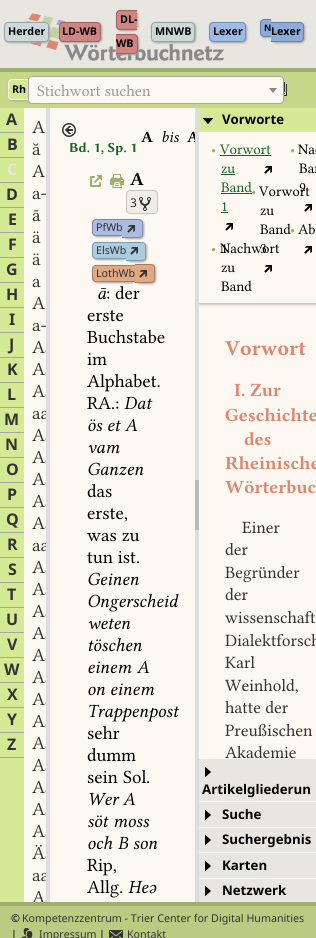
#include <cairo.h>
#include <math.h>
#include <stddef.h>


static void set_color(cairo_t *cr, unsigned color) {
    cairo_set_source_rgb(cr, (color >> 16) / 255.0, (color >> 8 & 255) / 255.0, (color & 255) / 255.0);
}

static void draw_text(cairo_t *cr, double x, double y, const char *s, const char *family, double size, int italic, int bold, unsigned color) {
    cairo_select_font_face(cr, family, italic ? CAIRO_FONT_SLANT_ITALIC : CAIRO_FONT_SLANT_NORMAL,
        bold ? CAIRO_FONT_WEIGHT_BOLD : CAIRO_FONT_WEIGHT_NORMAL);
    cairo_set_font_size(cr, size);
    set_color(cr, color);
    cairo_move_to(cr, x, y);
    cairo_show_text(cr, s);
}

static void fill_rect(cairo_t *cr, double x, double y, double w, double h, unsigned color) {
    set_color(cr, color);
    cairo_rectangle(cr, x, y, w, h);
    cairo_fill(cr);
}

static void rounded_rect(cairo_t *cr, double x, double y, double w, double h, double r) {
    cairo_new_sub_path(cr);
    cairo_arc(cr, x + w - r, y + h - r, r, 0, M_PI / 2);
    cairo_arc(cr, x + r, y + h - r, r, M_PI / 2, M_PI);
    cairo_arc(cr, x + r, y + r, r, M_PI, 1.5 * M_PI);
    cairo_arc(cr, x + w - r, y + r, r, 1.5 * M_PI, 2 * M_PI);
    cairo_close_path(cr);
}

static void draw_shadow(cairo_t *cr, double x, double y, double w, double h, double r, double blur, double alpha) {
    cairo_push_group_with_content(cr, CAIRO_CONTENT_ALPHA);
    cairo_set_operator(cr, CAIRO_OPERATOR_SOURCE);
    for (int i = 15; i >= -15 && fmin(w, h) + blur * i / 3 > 0; i -= 2) {
        double e = blur * i / 6;
        cairo_set_source_rgba(cr, 0, 0, 0, alpha * erfc((i - 1) / 8.5) / 2);
        rounded_rect(cr, x - e, y - e, w + 2 * e, h + 2 * e, fmax(0, fmin(r + e + blur * .6, fmin(w, h) / 2 + e)));
        cairo_fill(cr);
    }
    cairo_pattern_t *soft = cairo_pop_group(cr);
    cairo_mask(cr, soft);
    cairo_pattern_destroy(soft);
}

static void draw_image(cairo_t *cr, const char *path, double x, double y, double w, double h) {
    cairo_surface_t *image = cairo_image_surface_create_from_png(path);
    cairo_save(cr);
    cairo_set_source_surface(cr, image, x, y);
    cairo_rectangle(cr, x, y, w, h);
    cairo_fill(cr);
    cairo_restore(cr);
    cairo_surface_destroy(image);
}

int main(void) {
    cairo_surface_t *surface = cairo_image_surface_create(CAIRO_FORMAT_RGB24, 316, 938);
    cairo_t *cr = cairo_create(surface);
    cairo_font_options_t *options = cairo_font_options_create();
    cairo_font_options_set_hint_metrics(options, CAIRO_HINT_METRICS_OFF);
    cairo_font_options_set_hint_style(options, CAIRO_HINT_STYLE_NONE);
    cairo_set_font_options(cr, options);
    cairo_set_miter_limit(cr, 4);
    set_color(cr, 0x9FAF6F);
    cairo_paint(cr);
    fill_rect(cr, 0, 0, 316, 68, 0xE8E6E1);
    draw_image(cr, "assets/img1.png", 25, 13, 199, 48);
    set_color(cr, 0xA8A6A1);
    draw_shadow(cr, 5, 23, 45, 20, 4, 1, 1);
    set_color(cr, 0xCCDADE);
    rounded_rect(cr, 4.5, 22.5, 44, 19, 3.5);
    cairo_fill_preserve(cr);
    set_color(cr, 0x99A3A6);
    cairo_set_line_width(cr, 1);
    cairo_stroke(cr);
    draw_text(cr, 8, 35, "Herder", "Noto Sans", 10.7, 0, 1, 0x000000);
    set_color(cr, 0xA8A6A1);
    draw_shadow(cr, 60, 23, 42, 20, 4, 1, 1);
    set_color(cr, 0xD08581);
    rounded_rect(cr, 59.5, 22.5, 41, 19, 3.5);
    cairo_fill_preserve(cr);
    set_color(cr, 0x9C6360);
    cairo_stroke(cr);
    draw_text(cr, 62, 35, "LD-WB", "Noto Sans", 10.7, 0, 1, 0x000000);
    set_color(cr, 0xA8A6A1);
    draw_shadow(cr, 117, 11, 21, 20, 4, 1, 1);
    set_color(cr, 0xD08581);
    cairo_new_path(cr);
    cairo_move_to(cr, 120, 10);
    cairo_line_to(cr, 137, 10);
    cairo_line_to(cr, 137, 30);
    cairo_line_to(cr, 120, 30);
    cairo_curve_to(cr, 118, 30, 116, 28, 116, 26);
    cairo_line_to(cr, 116, 14);
    cairo_curve_to(cr, 116, 12, 118, 10, 120, 10);
    cairo_close_path(cr);
    cairo_fill(cr);
    set_color(cr, 0x9C6360);
    cairo_set_fill_rule(cr, CAIRO_FILL_RULE_EVEN_ODD);
    cairo_new_path(cr);
    cairo_move_to(cr, 120, 10);
    cairo_line_to(cr, 137, 10);
    cairo_line_to(cr, 137, 30);
    cairo_line_to(cr, 120, 30);
    cairo_curve_to(cr, 118, 30, 116, 28, 116, 26);
    cairo_line_to(cr, 116, 14);
    cairo_curve_to(cr, 116, 12, 118, 10, 120, 10);
    cairo_close_path(cr);
    cairo_move_to(cr, 120, 11);
    cairo_line_to(cr, 137, 11);
    cairo_line_to(cr, 137, 29);
    cairo_line_to(cr, 120, 29);
    cairo_curve_to(cr, 118.5, 29, 117, 27.5, 117, 26);
    cairo_line_to(cr, 117, 14);
    cairo_curve_to(cr, 117, 12.5, 118.5, 11, 120, 11);
    cairo_close_path(cr);
    cairo_fill(cr);
    draw_text(cr, 120, 23, "DL-", "Noto Sans", 10.7, 0, 1, 0x000000);
    set_color(cr, 0xA8A6A1);
    draw_shadow(cr, 117, 35, 22, 20, 4, 1, 1);
    set_color(cr, 0xD08581);
    cairo_new_path(cr);
    cairo_move_to(cr, 116, 34);
    cairo_line_to(cr, 134, 34);
    cairo_curve_to(cr, 136, 34, 138, 36, 138, 38);
    cairo_line_to(cr, 138, 50);
    cairo_curve_to(cr, 138, 52, 136, 54, 134, 54);
    cairo_line_to(cr, 116, 54);
    cairo_close_path(cr);
    cairo_fill(cr);
    set_color(cr, 0x9C6360);
    cairo_new_path(cr);
    cairo_move_to(cr, 116, 34);
    cairo_line_to(cr, 134, 34);
    cairo_curve_to(cr, 136, 34, 138, 36, 138, 38);
    cairo_line_to(cr, 138, 50);
    cairo_curve_to(cr, 138, 52, 136, 54, 134, 54);
    cairo_line_to(cr, 116, 54);
    cairo_close_path(cr);
    cairo_move_to(cr, 116, 35);
    cairo_line_to(cr, 134, 35);
    cairo_curve_to(cr, 135.5, 35, 137, 36.5, 137, 38);
    cairo_line_to(cr, 137, 50);
    cairo_curve_to(cr, 137, 51.5, 135.5, 53, 134, 53);
    cairo_line_to(cr, 116, 53);
    cairo_close_path(cr);
    cairo_fill(cr);
    draw_text(cr, 116, 47, "WB", "Noto Sans", 10.7, 0, 1, 0x000000);
    set_color(cr, 0xA8A6A1);
    draw_shadow(cr, 152, 23, 44, 20, 4, 1, 1);
    set_color(cr, 0xCAD8D8);
    rounded_rect(cr, 151.5, 22.5, 43, 19, 3.5);
    cairo_fill_preserve(cr);
    set_color(cr, 0x97A2A2);
    cairo_stroke(cr);
    draw_text(cr, 155, 35, "MNWB", "Noto Sans", 10.7, 0, 1, 0x000000);
    set_color(cr, 0xA8A6A1);
    draw_shadow(cr, 210, 23, 37, 20, 4, 1, 1);
    set_color(cr, 0x9DBCEA);
    rounded_rect(cr, 209.5, 22.5, 36, 19, 3.5);
    cairo_fill_preserve(cr);
    set_color(cr, 0x758DAF);
    cairo_stroke(cr);
    draw_text(cr, 213, 35, "Lexer", "Noto Sans", 10.7, 0, 1, 0x000000);
    set_color(cr, 0xA8A6A1);
    draw_shadow(cr, 261, 20, 11, 18, 4, 1, 1);
    set_color(cr, 0x8DACDA);
    cairo_new_path(cr);
    cairo_move_to(cr, 264, 19);
    cairo_line_to(cr, 271, 19);
    cairo_line_to(cr, 271, 37);
    cairo_line_to(cr, 264, 37);
    cairo_curve_to(cr, 262, 37, 260, 35, 260, 33);
    cairo_line_to(cr, 260, 23);
    cairo_curve_to(cr, 260, 21, 262, 19, 264, 19);
    cairo_close_path(cr);
    cairo_fill(cr);
    set_color(cr, 0x6981A3);
    cairo_new_path(cr);
    cairo_move_to(cr, 264, 19);
    cairo_line_to(cr, 271, 19);
    cairo_line_to(cr, 271, 37);
    cairo_line_to(cr, 264, 37);
    cairo_curve_to(cr, 262, 37, 260, 35, 260, 33);
    cairo_line_to(cr, 260, 23);
    cairo_curve_to(cr, 260, 21, 262, 19, 264, 19);
    cairo_close_path(cr);
    cairo_move_to(cr, 264, 20);
    cairo_line_to(cr, 271, 20);
    cairo_line_to(cr, 271, 36);
    cairo_line_to(cr, 264, 36);
    cairo_curve_to(cr, 262.5, 36, 261, 34.5, 261, 33);
    cairo_line_to(cr, 261, 23);
    cairo_curve_to(cr, 261, 21.5, 262.5, 20, 264, 20);
    cairo_close_path(cr);
    cairo_fill(cr);
    set_color(cr, 0xA8A6A1);
    draw_shadow(cr, 272, 23, 33, 20, 4, 1, 1);
    draw_text(cr, 264, 31, "N", "Noto Sans", 9, 0, 1, 0x000000);
    set_color(cr, 0x8DACDA);
    cairo_new_path(cr);
    cairo_move_to(cr, 271, 22);
    cairo_line_to(cr, 300, 22);
    cairo_curve_to(cr, 302, 22, 304, 24, 304, 26);
    cairo_line_to(cr, 304, 38);
    cairo_curve_to(cr, 304, 40, 302, 42, 300, 42);
    cairo_line_to(cr, 271, 42);
    cairo_close_path(cr);
    cairo_fill(cr);
    set_color(cr, 0x6981A3);
    cairo_new_path(cr);
    cairo_move_to(cr, 271, 22);
    cairo_line_to(cr, 300, 22);
    cairo_curve_to(cr, 302, 22, 304, 24, 304, 26);
    cairo_line_to(cr, 304, 38);
    cairo_curve_to(cr, 304, 40, 302, 42, 300, 42);
    cairo_line_to(cr, 271, 42);
    cairo_close_path(cr);
    cairo_move_to(cr, 271, 23);
    cairo_line_to(cr, 300, 23);
    cairo_curve_to(cr, 301.5, 23, 303, 24.5, 303, 26);
    cairo_line_to(cr, 303, 38);
    cairo_curve_to(cr, 303, 39.5, 301.5, 41, 300, 41);
    cairo_line_to(cr, 271, 41);
    cairo_close_path(cr);
    cairo_fill(cr);
    draw_text(cr, 271, 35, "Lexer", "Noto Sans", 10.7, 0, 1, 0x000000);
    fill_rect(cr, 0, 72, 316, 36, 0xC5D889);
    set_color(cr, 0xA8A6A1);
    draw_shadow(cr, 9, 80, 38, 21, 4, 1, 1);
    set_color(cr, 0xD5EA95);
    rounded_rect(cr, 8.5, 79.5, 37, 20, 3.5);
    cairo_fill_preserve(cr);
    set_color(cr, 0xFDF9F2);
    cairo_stroke(cr);
    draw_text(cr, 12, 93, "Rh", "Noto Sans", 10.7, 0, 1, 0x000000);
    set_color(cr, 0xFDF9F2);
    rounded_rect(cr, 28.5, 76.5, 255, 27, 3.5);
    cairo_fill_preserve(cr);
    set_color(cr, 0xAAAAAA);
    cairo_stroke(cr);
    draw_image(cr, "assets/img2.png", 37, 84, 114, 13);
    set_color(cr, 0x888888);
    cairo_set_fill_rule(cr, CAIRO_FILL_RULE_WINDING);
    cairo_new_path(cr);
    cairo_move_to(cr, 269, 88);
    cairo_line_to(cr, 277, 88);
    cairo_line_to(cr, 273, 93);
    cairo_close_path(cr);
    cairo_fill(cr);
    draw_image(cr, "assets/img3.png", 284, 82, 3, 14);
    fill_rect(cr, 46, 108, 4, 794, 0xDDDDDD);
    fill_rect(cr, 50, 108, 145, 794, 0xFDF9F2);
    draw_image(cr, "assets/img19.png", 187, 131, 8, 11);
    fill_rect(cr, 199, 756, 117, 3, 0xFFFFFF);
    set_color(cr, 0xFDF9F2);
    cairo_new_path(cr);
    cairo_move_to(cr, 199, 132);
    cairo_line_to(cr, 316, 132);
    cairo_line_to(cr, 316, 756);
    cairo_curve_to(cr, 316, 757.5, 314.5, 759, 313, 759);
    cairo_line_to(cr, 202, 759);
    cairo_curve_to(cr, 200.5, 759, 199, 757.5, 199, 756);
    cairo_close_path(cr);
    cairo_fill(cr);
    cairo_save(cr);
    cairo_rectangle(cr, 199, 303, 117, 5);
    cairo_clip(cr);
    set_color(cr, 0xA8A6A1);
    draw_shadow(cr, 200, 133, 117, 171, 0, 2, 1);
    cairo_restore(cr);
    fill_rect(cr, 195, 108, 4, 794, 0xDDDDDD);
    fill_rect(cr, 195, 480, 4, 50, 0xBBBBBB);
    fill_rect(cr, 0, 108, 24, 794, 0xD5EA95);
    fill_rect(cr, 0, 132, 24, 1, 0xA8A6A1);
    draw_text(cr, 6, 125, "A", "Noto Sans", 16, 0, 1, 0x333333);
    fill_rect(cr, 0, 157, 24, 1, 0xA8A6A1);
    draw_text(cr, 7, 150, "B", "Noto Sans", 16, 0, 1, 0x333333);
    fill_rect(cr, 0, 182, 24, 1, 0xA8A6A1);
    draw_text(cr, 7, 175, "C", "Noto Sans", 16, 0, 1, 0xE8E6E1);
    fill_rect(cr, 0, 207, 24, 1, 0xA8A6A1);
    draw_text(cr, 6, 200, "D", "Noto Sans", 16, 0, 1, 0x333333);
    fill_rect(cr, 0, 232, 24, 1, 0xA8A6A1);
    draw_text(cr, 8, 225, "E", "Noto Sans", 16, 0, 1, 0x333333);
    fill_rect(cr, 0, 257, 24, 1, 0xA8A6A1);
    draw_text(cr, 8, 250, "F", "Noto Sans", 16, 0, 1, 0x333333);
    fill_rect(cr, 0, 282, 24, 1, 0xA8A6A1);
    draw_text(cr, 6, 275, "G", "Noto Sans", 16, 0, 1, 0x333333);
    fill_rect(cr, 0, 307, 24, 1, 0xA8A6A1);
    draw_text(cr, 6, 300, "H", "Noto Sans", 16, 0, 1, 0x333333);
    fill_rect(cr, 0, 332, 24, 1, 0xA8A6A1);
    draw_text(cr, 9, 325, "I", "Noto Sans", 16, 0, 1, 0x333333);
    fill_rect(cr, 0, 357, 24, 1, 0xA8A6A1);
    draw_text(cr, 9, 350, "J", "Noto Sans", 16, 0, 1, 0x333333);
    fill_rect(cr, 0, 382, 24, 1, 0xA8A6A1);
    draw_text(cr, 7, 375, "K", "Noto Sans", 16, 0, 1, 0x333333);
    fill_rect(cr, 0, 407, 24, 1, 0xA8A6A1);
    draw_text(cr, 7, 400, "L", "Noto Sans", 16, 0, 1, 0x333333);
    fill_rect(cr, 0, 432, 24, 1, 0xA8A6A1);
    draw_text(cr, 4, 425, "M", "Noto Sans", 16, 0, 1, 0x333333);
    fill_rect(cr, 0, 457, 24, 1, 0xA8A6A1);
    draw_text(cr, 5, 450, "N", "Noto Sans", 16, 0, 1, 0x333333);
    fill_rect(cr, 0, 482, 24, 1, 0xA8A6A1);
    draw_text(cr, 6, 475, "O", "Noto Sans", 16, 0, 1, 0x333333);
    fill_rect(cr, 0, 507, 24, 1, 0xA8A6A1);
    draw_text(cr, 7, 500, "P", "Noto Sans", 16, 0, 1, 0x333333);
    fill_rect(cr, 0, 532, 24, 1, 0xA8A6A1);
    draw_text(cr, 6, 525, "Q", "Noto Sans", 16, 0, 1, 0x333333);
    fill_rect(cr, 0, 557, 24, 1, 0xA8A6A1);
    draw_text(cr, 7, 550, "R", "Noto Sans", 16, 0, 1, 0x333333);
    fill_rect(cr, 0, 582, 24, 1, 0xA8A6A1);
    draw_text(cr, 8, 575, "S", "Noto Sans", 16, 0, 1, 0x333333);
    fill_rect(cr, 0, 607, 24, 1, 0xA8A6A1);
    draw_text(cr, 7, 600, "T", "Noto Sans", 16, 0, 1, 0x333333);
    fill_rect(cr, 0, 632, 24, 1, 0xA8A6A1);
    draw_text(cr, 6, 625, "U", "Noto Sans", 16, 0, 1, 0x333333);
    fill_rect(cr, 0, 657, 24, 1, 0xA8A6A1);
    draw_text(cr, 7, 650, "V", "Noto Sans", 16, 0, 1, 0x333333);
    fill_rect(cr, 0, 682, 24, 1, 0xA8A6A1);
    draw_text(cr, 4, 675, "W", "Noto Sans", 16, 0, 1, 0x333333);
    fill_rect(cr, 0, 707, 24, 1, 0xA8A6A1);
    draw_text(cr, 7, 700, "X", "Noto Sans", 16, 0, 1, 0x333333);
    fill_rect(cr, 0, 732, 24, 1, 0xA8A6A1);
    draw_text(cr, 7, 725, "Y", "Noto Sans", 16, 0, 1, 0x333333);
    fill_rect(cr, 0, 757, 24, 1, 0xA8A6A1);
    draw_text(cr, 7, 750, "Z", "Noto Sans", 16, 0, 1, 0x333333);
    fill_rect(cr, 24, 108, 22, 794, 0xFDF9F2);
    draw_image(cr, "assets/img4.png", 32, 120, 13, 13);
    draw_image(cr, "assets/img5.png", 32, 143, 9, 13);
    draw_image(cr, "assets/img4.png", 32, 164, 13, 13);
    draw_image(cr, "assets/img6.png", 32, 190, 14, 10);
    draw_image(cr, "assets/img7.png", 32, 210, 9, 12);
    draw_image(cr, "assets/img8.png", 32, 231, 9, 13);
    draw_image(cr, "assets/img8.png", 32, 253, 9, 13);
    draw_image(cr, "assets/img9.png", 32, 278, 9, 10);
    draw_image(cr, "assets/img4.png", 32, 296, 13, 13);
    draw_image(cr, "assets/img6.png", 32, 322, 14, 10);
    draw_image(cr, "assets/img10.png", 32, 340, 14, 13);
    draw_image(cr, "assets/img10.png", 32, 362, 14, 13);
    draw_image(cr, "assets/img11.png", 32, 384, 14, 13);
    draw_image(cr, "assets/img12.png", 32, 410, 14, 10);
    draw_image(cr, "assets/img11.png", 32, 428, 14, 13);
    draw_image(cr, "assets/img11.png", 32, 450, 14, 13);
    draw_image(cr, "assets/img11.png", 32, 472, 14, 13);
    draw_image(cr, "assets/img11.png", 32, 494, 14, 13);
    draw_image(cr, "assets/img11.png", 32, 516, 14, 13);
    draw_image(cr, "assets/img12.png", 32, 542, 14, 10);
    draw_image(cr, "assets/img11.png", 32, 560, 14, 13);
    draw_image(cr, "assets/img11.png", 32, 582, 14, 13);
    draw_image(cr, "assets/img10.png", 32, 604, 14, 13);
    draw_image(cr, "assets/img10.png", 32, 626, 14, 13);
    draw_image(cr, "assets/img10.png", 32, 648, 14, 13);
    draw_image(cr, "assets/img11.png", 32, 670, 14, 13);
    draw_image(cr, "assets/img11.png", 32, 692, 14, 13);
    draw_image(cr, "assets/img10.png", 32, 714, 14, 13);
    draw_image(cr, "assets/img10.png", 32, 736, 14, 13);
    draw_image(cr, "assets/img10.png", 32, 758, 14, 13);
    draw_image(cr, "assets/img10.png", 32, 780, 14, 13);
    draw_image(cr, "assets/img10.png", 32, 802, 14, 13);
    draw_image(cr, "assets/img11.png", 32, 824, 14, 13);
    draw_image(cr, "assets/img13.png", 32, 845, 14, 14);
    draw_image(cr, "assets/img12.png", 32, 872, 14, 10);
    draw_image(cr, "assets/img14.png", 33, 890, 13, 12);
    draw_image(cr, "assets/img15.png", 62, 123, 14, 14);
    draw_image(cr, "assets/img16.png", 70, 142, 66, 14);
    draw_image(cr, "assets/img17.png", 141, 131, 12, 11);
    draw_image(cr, "assets/img18.png", 162, 130, 18, 13);
    draw_image(cr, "assets/img20.png", 90, 175, 12, 12);
    draw_image(cr, "assets/img21.png", 110, 174, 14, 14);
    draw_image(cr, "assets/img22.png", 130, 172, 14, 13);
    set_color(cr, 0xF0EDE6);
    rounded_rect(cr, 126.5, 190.5, 31, 23, 3.5);
    cairo_fill_preserve(cr);
    set_color(cr, 0xC8C6C1);
    cairo_stroke(cr);
    draw_text(cr, 130, 207, "3", "Noto Sans", 12, 0, 0, 0x333333);
    draw_image(cr, "assets/img23.png", 139, 197, 12, 14);
    set_color(cr, 0xA8A6A1);
    draw_shadow(cr, 93, 220, 30, 17, 4, 1, 1);
    set_color(cr, 0xADBAE2);
    cairo_new_path(cr);
    cairo_move_to(cr, 96, 219);
    cairo_line_to(cr, 122, 219);
    cairo_line_to(cr, 122, 236);
    cairo_line_to(cr, 96, 236);
    cairo_curve_to(cr, 94, 236, 92, 234, 92, 232);
    cairo_line_to(cr, 92, 223);
    cairo_curve_to(cr, 92, 221, 94, 219, 96, 219);
    cairo_close_path(cr);
    cairo_fill(cr);
    set_color(cr, 0x818BA9);
    cairo_set_fill_rule(cr, CAIRO_FILL_RULE_EVEN_ODD);
    cairo_new_path(cr);
    cairo_move_to(cr, 96, 219);
    cairo_line_to(cr, 122, 219);
    cairo_line_to(cr, 122, 236);
    cairo_line_to(cr, 96, 236);
    cairo_curve_to(cr, 94, 236, 92, 234, 92, 232);
    cairo_line_to(cr, 92, 223);
    cairo_curve_to(cr, 92, 221, 94, 219, 96, 219);
    cairo_close_path(cr);
    cairo_move_to(cr, 96, 220);
    cairo_line_to(cr, 122, 220);
    cairo_line_to(cr, 122, 235);
    cairo_line_to(cr, 96, 235);
    cairo_curve_to(cr, 94.5, 235, 93, 233.5, 93, 232);
    cairo_line_to(cr, 93, 223);
    cairo_curve_to(cr, 93, 221.5, 94.5, 220, 96, 220);
    cairo_close_path(cr);
    cairo_fill(cr);
    set_color(cr, 0xA8A6A1);
    draw_shadow(cr, 123, 220, 21, 19, 4, 1, 1);
    set_color(cr, 0xADBAE2);
    cairo_new_path(cr);
    cairo_move_to(cr, 122, 219);
    cairo_line_to(cr, 139, 219);
    cairo_curve_to(cr, 141, 219, 143, 221, 143, 223);
    cairo_line_to(cr, 143, 234);
    cairo_curve_to(cr, 143, 236, 141, 238, 139, 238);
    cairo_line_to(cr, 122, 238);
    cairo_close_path(cr);
    cairo_fill(cr);
    set_color(cr, 0x818BA9);
    cairo_new_path(cr);
    cairo_move_to(cr, 122, 219);
    cairo_line_to(cr, 136, 219);
    cairo_curve_to(cr, 144, 219, 143, 221.5, 143, 228.5);
    cairo_curve_to(cr, 143, 235.5, 144, 238, 136, 238);
    cairo_line_to(cr, 122, 238);
    cairo_close_path(cr);
    cairo_move_to(cr, 122, 220);
    cairo_line_to(cr, 136, 220);
    cairo_curve_to(cr, 143.5, 220, 142, 222, 142, 228.5);
    cairo_curve_to(cr, 142, 235, 143.5, 237, 136, 237);
    cairo_line_to(cr, 122, 237);
    cairo_close_path(cr);
    cairo_fill(cr);
    draw_text(cr, 96, 231, "PfWb", "Noto Sans", 10.7, 0, 0, 0x333333);
    draw_image(cr, "assets/img24.png", 127, 225, 8, 8);
    set_color(cr, 0xA8A6A1);
    draw_shadow(cr, 93, 243, 34, 17, 4, 1, 1);
    set_color(cr, 0xAACDDF);
    cairo_new_path(cr);
    cairo_move_to(cr, 96, 242);
    cairo_line_to(cr, 126, 242);
    cairo_line_to(cr, 126, 259);
    cairo_line_to(cr, 96, 259);
    cairo_curve_to(cr, 94, 259, 92, 257, 92, 255);
    cairo_line_to(cr, 92, 246);
    cairo_curve_to(cr, 92, 244, 94, 242, 96, 242);
    cairo_close_path(cr);
    cairo_fill(cr);
    set_color(cr, 0x7F99A7);
    cairo_new_path(cr);
    cairo_move_to(cr, 96, 242);
    cairo_line_to(cr, 126, 242);
    cairo_line_to(cr, 126, 259);
    cairo_line_to(cr, 96, 259);
    cairo_curve_to(cr, 94, 259, 92, 257, 92, 255);
    cairo_line_to(cr, 92, 246);
    cairo_curve_to(cr, 92, 244, 94, 242, 96, 242);
    cairo_close_path(cr);
    cairo_move_to(cr, 96, 243);
    cairo_line_to(cr, 126, 243);
    cairo_line_to(cr, 126, 258);
    cairo_line_to(cr, 96, 258);
    cairo_curve_to(cr, 94.5, 258, 93, 256.5, 93, 255);
    cairo_line_to(cr, 93, 246);
    cairo_curve_to(cr, 93, 244.5, 94.5, 243, 96, 243);
    cairo_close_path(cr);
    cairo_fill(cr);
    set_color(cr, 0xA8A6A1);
    draw_shadow(cr, 127, 243, 20, 19, 4, 1, 1);
    set_color(cr, 0xAACDDF);
    cairo_new_path(cr);
    cairo_move_to(cr, 126, 242);
    cairo_line_to(cr, 142, 242);
    cairo_curve_to(cr, 144, 242, 146, 244, 146, 246);
    cairo_line_to(cr, 146, 257);
    cairo_curve_to(cr, 146, 259, 144, 261, 142, 261);
    cairo_line_to(cr, 126, 261);
    cairo_close_path(cr);
    cairo_fill(cr);
    set_color(cr, 0x7F99A7);
    cairo_new_path(cr);
    cairo_move_to(cr, 126, 242);
    cairo_line_to(cr, 139.5, 242);
    cairo_curve_to(cr, 147, 242, 146, 244.5, 146, 251.5);
    cairo_curve_to(cr, 146, 258.5, 147, 261, 139.5, 261);
    cairo_line_to(cr, 126, 261);
    cairo_close_path(cr);
    cairo_move_to(cr, 126, 243);
    cairo_line_to(cr, 139.5, 243);
    cairo_curve_to(cr, 146.5, 243, 145, 245, 145, 251.5);
    cairo_curve_to(cr, 145, 258, 146.5, 260, 139.5, 260);
    cairo_line_to(cr, 126, 260);
    cairo_close_path(cr);
    cairo_fill(cr);
    draw_text(cr, 96, 254, "ElsWb", "Noto Sans", 10.7, 0, 0, 0x333333);
    draw_image(cr, "assets/img25.png", 130, 247, 8, 8);
    set_color(cr, 0xA8A6A1);
    draw_shadow(cr, 93, 266, 43, 17, 4, 1, 1);
    set_color(cr, 0xE0A984);
    cairo_new_path(cr);
    cairo_move_to(cr, 96, 265);
    cairo_line_to(cr, 135, 265);
    cairo_line_to(cr, 135, 282);
    cairo_line_to(cr, 96, 282);
    cairo_curve_to(cr, 94, 282, 92, 280, 92, 278);
    cairo_line_to(cr, 92, 269);
    cairo_curve_to(cr, 92, 267, 94, 265, 96, 265);
    cairo_close_path(cr);
    cairo_fill(cr);
    set_color(cr, 0xA87E63);
    cairo_new_path(cr);
    cairo_move_to(cr, 96, 265);
    cairo_line_to(cr, 135, 265);
    cairo_line_to(cr, 135, 282);
    cairo_line_to(cr, 96, 282);
    cairo_curve_to(cr, 94, 282, 92, 280, 92, 278);
    cairo_line_to(cr, 92, 269);
    cairo_curve_to(cr, 92, 267, 94, 265, 96, 265);
    cairo_close_path(cr);
    cairo_move_to(cr, 96, 266);
    cairo_line_to(cr, 135, 266);
    cairo_line_to(cr, 135, 281);
    cairo_line_to(cr, 109, 281);
    cairo_curve_to(cr, 92, 281, 93, 284, 93, 269);
    cairo_curve_to(cr, 93, 267, 94, 266, 96, 266);
    cairo_close_path(cr);
    cairo_fill(cr);
    set_color(cr, 0xA8A6A1);
    draw_shadow(cr, 136, 265, 20, 19, 4, 1, 1);
    set_color(cr, 0xE0A984);
    cairo_new_path(cr);
    cairo_move_to(cr, 135, 264);
    cairo_line_to(cr, 151, 264);
    cairo_curve_to(cr, 153, 264, 155, 266, 155, 268);
    cairo_line_to(cr, 155, 279);
    cairo_curve_to(cr, 155, 281, 153, 283, 151, 283);
    cairo_line_to(cr, 135, 283);
    cairo_close_path(cr);
    cairo_fill(cr);
    set_color(cr, 0xA87E63);
    cairo_new_path(cr);
    cairo_move_to(cr, 135, 264);
    cairo_line_to(cr, 148.5, 264);
    cairo_curve_to(cr, 156, 264, 155, 266.5, 155, 273.5);
    cairo_curve_to(cr, 155, 280.5, 156, 283, 148.5, 283);
    cairo_line_to(cr, 135, 283);
    cairo_close_path(cr);
    cairo_move_to(cr, 135, 265);
    cairo_line_to(cr, 148.5, 265);
    cairo_curve_to(cr, 155.5, 265, 154, 267, 154, 273.5);
    cairo_curve_to(cr, 154, 280, 155.5, 282, 148.5, 282);
    cairo_line_to(cr, 135, 282);
    cairo_close_path(cr);
    cairo_fill(cr);
    draw_text(cr, 96, 277, "LothWb", "Noto Sans", 10.7, 0, 0, 0x333333);
    draw_image(cr, "assets/img26.png", 139, 270, 8, 8);
    draw_image(cr, "assets/img27.png", 98, 288, 9, 12);
    draw_image(cr, "assets/img28.png", 107, 291, 3, 8);
    draw_image(cr, "assets/img29.png", 115, 286, 25, 14);
    draw_image(cr, "assets/img30.png", 87, 310, 36, 12);
    draw_image(cr, "assets/img31.png", 87, 330, 78, 14);
    draw_image(cr, "assets/img32.png", 87, 353, 20, 12);
    draw_image(cr, "assets/img33.png", 87, 374, 73, 18);
    draw_image(cr, "assets/img34.png", 87, 396, 32, 14);
    draw_image(cr, "assets/img35.png", 124, 396, 29, 14);
    draw_image(cr, "assets/img36.png", 88, 419, 15, 13);
    draw_image(cr, "assets/img37.png", 108, 420, 13, 12);
    draw_image(cr, "assets/img38.png", 124, 418, 14, 13);
    draw_image(cr, "assets/img39.png", 88, 444, 32, 10);
    draw_image(cr, "assets/img40.png", 88, 462, 56, 14);
    draw_image(cr, "assets/img41.png", 87, 484, 25, 14);
    draw_image(cr, "assets/img42.png", 87, 508, 40, 14);
    draw_image(cr, "assets/img43.png", 87, 532, 29, 10);
    draw_image(cr, "assets/img44.png", 122, 532, 18, 10);
    draw_image(cr, "assets/img45.png", 87, 552, 26, 12);
    draw_image(cr, "assets/img46.png", 118, 551, 21, 13);
    draw_image(cr, "assets/img47.png", 88, 572, 51, 14);
    draw_image(cr, "assets/img48.png", 88, 594, 91, 18);
    draw_image(cr, "assets/img49.png", 88, 618, 43, 12);
    draw_image(cr, "assets/img50.png", 88, 638, 54, 14);
    draw_image(cr, "assets/img51.png", 88, 661, 44, 13);
    draw_image(cr, "assets/img38.png", 136, 660, 14, 13);
    draw_image(cr, "assets/img52.png", 88, 686, 17, 10);
    draw_image(cr, "assets/img53.png", 111, 683, 44, 13);
    draw_image(cr, "assets/img54.png", 89, 704, 91, 18);
    draw_image(cr, "assets/img55.png", 87, 726, 33, 14);
    draw_image(cr, "assets/img56.png", 87, 748, 49, 14);
    draw_image(cr, "assets/img57.png", 87, 771, 31, 13);
    draw_image(cr, "assets/img58.png", 123, 770, 24, 14);
    draw_image(cr, "assets/img59.png", 147, 781, 2, 3);
    draw_image(cr, "assets/img60.png", 89, 792, 31, 14);
    draw_image(cr, "assets/img38.png", 122, 792, 14, 13);
    draw_image(cr, "assets/img61.png", 88, 815, 21, 13);
    draw_image(cr, "assets/img62.png", 114, 818, 36, 10);
    draw_image(cr, "assets/img63.png", 88, 836, 25, 14);
    draw_image(cr, "assets/img64.png", 118, 836, 11, 13);
    draw_image(cr, "assets/img65.png", 133, 840, 25, 10);
    draw_image(cr, "assets/img66.png", 87, 858, 29, 18);
    draw_image(cr, "assets/img67.png", 87, 880, 36, 18);
    draw_image(cr, "assets/img68.png", 128, 880, 29, 14);
    fill_rect(cr, 199, 108, 117, 24, 0xD5EA95);
    draw_image(cr, "assets/img69.png", 203, 118, 10, 6);
    draw_text(cr, 222, 124, "Vorworte", "Noto Sans", 13.25, 0, 1, 0x000000);
    draw_image(cr, "assets/img70.png", 211, 149, 5, 4);
    draw_image(cr, "assets/img71.png", 220, 144, 51, 11);
    fill_rect(cr, 220, 155, 51, 1, 0x116622);
    draw_image(cr, "assets/img72.png", 221, 166, 14, 8);
    fill_rect(cr, 221, 174, 14, 1, 0x116622);
    draw_image(cr, "assets/img73.png", 221, 181, 31, 12);
    fill_rect(cr, 221, 193, 31, 1, 0x116622);
    draw_image(cr, "assets/img74.png", 222, 202, 5, 9);
    fill_rect(cr, 221, 212, 7, 1, 0x116622);
    draw_image(cr, "assets/img75.png", 225, 223, 8, 8);
    draw_image(cr, "assets/img70.png", 290, 149, 5, 4);
    draw_image(cr, "assets/img76.png", 298, 144, 18, 11);
    draw_image(cr, "assets/img77.png", 299, 163, 17, 11);
    draw_image(cr, "assets/img84.png", 259, 186, 51, 11);
    draw_image(cr, "assets/img78.png", 299, 183, 7, 10);
    draw_image(cr, "assets/img75.png", 304, 204, 8, 8);
    draw_image(cr, "assets/img75.png", 264, 166, 8, 8);
    draw_image(cr, "assets/img79.png", 220, 242, 60, 12);
    draw_image(cr, "assets/img70.png", 211, 248, 5, 4);
    draw_image(cr, "assets/img80.png", 222, 244, 5, 9);
    draw_image(cr, "assets/img81.png", 221, 265, 14, 8);
    draw_image(cr, "assets/img82.png", 221, 280, 31, 12);
    draw_image(cr, "assets/img83.png", 251, 191, 5, 4);
    draw_image(cr, "assets/img81.png", 260, 208, 14, 8);
    draw_image(cr, "assets/img82.png", 260, 223, 31, 12);
    draw_image(cr, "assets/img85.png", 260, 244, 6, 10);
    draw_image(cr, "assets/img75.png", 264, 265, 8, 8);
    draw_image(cr, "assets/img70.png", 290, 229, 5, 4);
    draw_image(cr, "assets/img86.png", 298, 223, 18, 12);
    draw_image(cr, "assets/img75.png", 304, 246, 8, 8);
    draw_image(cr, "assets/img87.png", 225, 341, 81, 15);
    draw_image(cr, "assets/img88.png", 234, 383, 47, 14);
    draw_image(cr, "assets/img89.png", 225, 408, 91, 14);
    draw_image(cr, "assets/img90.png", 244, 432, 27, 14);
    draw_image(cr, "assets/img91.png", 225, 456, 91, 14);
    draw_image(cr, "assets/img92.png", 225, 480, 91, 14);
    draw_image(cr, "assets/img93.png", 242, 521, 38, 13);
    draw_image(cr, "assets/img94.png", 225, 543, 23, 13);
    draw_image(cr, "assets/img95.png", 225, 565, 75, 18);
    draw_image(cr, "assets/img94.png", 225, 588, 23, 13);
    draw_image(cr, "assets/img96.png", 225, 610, 91, 14);
    draw_image(cr, "assets/img97.png", 225, 633, 91, 14);
    draw_image(cr, "assets/img98.png", 225, 655, 30, 14);
    draw_image(cr, "assets/img99.png", 225, 678, 73, 16);
    draw_image(cr, "assets/img100.png", 225, 700, 63, 14);
    draw_image(cr, "assets/img101.png", 225, 723, 88, 14);
    draw_image(cr, "assets/img102.png", 225, 745, 71, 14);
    fill_rect(cr, 199, 759, 117, 42, 0xE8E6E1);
    fill_rect(cr, 199, 801, 117, 1, 0xFDF9F2);
    draw_image(cr, "assets/img103.png", 205, 767, 6, 10);
    draw_text(cr, 202, 794, "Artikelgliederun", "Noto Sans", 13.25, 0, 1, 0x000000);
    fill_rect(cr, 199, 802, 117, 25, 0xE8E6E1);
    fill_rect(cr, 199, 827, 117, 1, 0xFDF9F2);
    draw_image(cr, "assets/img103.png", 205, 810, 6, 10);
    draw_text(cr, 222, 819, "Suche", "Noto Sans", 13.25, 0, 1, 0x000000);
    fill_rect(cr, 199, 828, 117, 24, 0xE8E6E1);
    fill_rect(cr, 199, 852, 117, 1, 0xFDF9F2);
    draw_image(cr, "assets/img103.png", 205, 835, 6, 10);
    draw_text(cr, 222, 844, "Suchergebnis", "Noto Sans", 13.25, 0, 1, 0x000000);
    fill_rect(cr, 199, 853, 117, 25, 0xE8E6E1);
    fill_rect(cr, 199, 878, 117, 1, 0xFDF9F2);
    draw_image(cr, "assets/img103.png", 205, 861, 6, 10);
    draw_text(cr, 222, 870, "Karten", "Noto Sans", 13.25, 0, 1, 0x000000);
    fill_rect(cr, 199, 879, 117, 23, 0xE8E6E1);
    draw_image(cr, "assets/img103.png", 205, 886, 6, 10);
    draw_text(cr, 222, 895, "Netzwerk", "Noto Sans", 13.25, 0, 1, 0x000000);
    fill_rect(cr, 0, 906, 316, 32, 0xBACC82);
    draw_text(cr, 11, 922, "©", "Noto Sans", 10.7, 0, 0, 0x000000);
    draw_text(cr, 22, 922, "Kompetenzzentrum - Trier Center for Digital Humanities", "Noto Sans", 10.7, 0, 0, 0x333333);
    draw_text(cr, 11, 938, "|", "Noto Sans", 10.7, 0, 0, 0x000000);
    draw_image(cr, "assets/img104.png", 21, 928, 12, 10);
    draw_text(cr, 39, 938, "Impressum", "Noto Sans", 10.7, 0, 0, 0x333333);
    draw_text(cr, 99, 938, "|", "Noto Sans", 10.7, 0, 0, 0x000000);
    draw_image(cr, "assets/img105.png", 109, 930, 14, 8);
    draw_text(cr, 127, 938, "Kontakt", "Noto Sans", 10.7, 0, 0, 0x333333);
    cairo_surface_write_to_png(surface, "output.png");
    cairo_font_options_destroy(options);
    cairo_destroy(cr);
    cairo_surface_destroy(surface);
    return 0;
}
